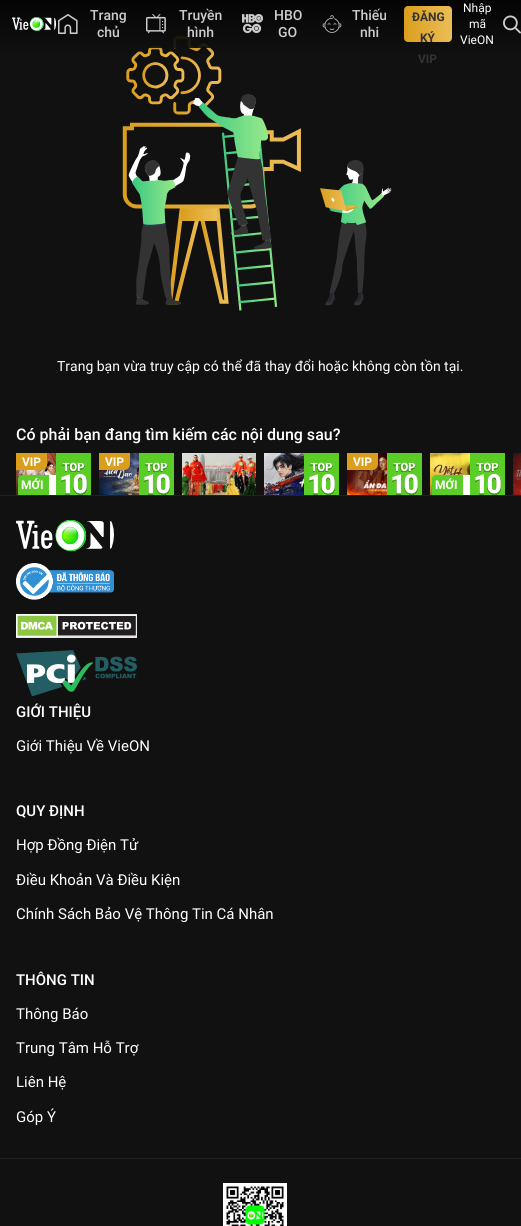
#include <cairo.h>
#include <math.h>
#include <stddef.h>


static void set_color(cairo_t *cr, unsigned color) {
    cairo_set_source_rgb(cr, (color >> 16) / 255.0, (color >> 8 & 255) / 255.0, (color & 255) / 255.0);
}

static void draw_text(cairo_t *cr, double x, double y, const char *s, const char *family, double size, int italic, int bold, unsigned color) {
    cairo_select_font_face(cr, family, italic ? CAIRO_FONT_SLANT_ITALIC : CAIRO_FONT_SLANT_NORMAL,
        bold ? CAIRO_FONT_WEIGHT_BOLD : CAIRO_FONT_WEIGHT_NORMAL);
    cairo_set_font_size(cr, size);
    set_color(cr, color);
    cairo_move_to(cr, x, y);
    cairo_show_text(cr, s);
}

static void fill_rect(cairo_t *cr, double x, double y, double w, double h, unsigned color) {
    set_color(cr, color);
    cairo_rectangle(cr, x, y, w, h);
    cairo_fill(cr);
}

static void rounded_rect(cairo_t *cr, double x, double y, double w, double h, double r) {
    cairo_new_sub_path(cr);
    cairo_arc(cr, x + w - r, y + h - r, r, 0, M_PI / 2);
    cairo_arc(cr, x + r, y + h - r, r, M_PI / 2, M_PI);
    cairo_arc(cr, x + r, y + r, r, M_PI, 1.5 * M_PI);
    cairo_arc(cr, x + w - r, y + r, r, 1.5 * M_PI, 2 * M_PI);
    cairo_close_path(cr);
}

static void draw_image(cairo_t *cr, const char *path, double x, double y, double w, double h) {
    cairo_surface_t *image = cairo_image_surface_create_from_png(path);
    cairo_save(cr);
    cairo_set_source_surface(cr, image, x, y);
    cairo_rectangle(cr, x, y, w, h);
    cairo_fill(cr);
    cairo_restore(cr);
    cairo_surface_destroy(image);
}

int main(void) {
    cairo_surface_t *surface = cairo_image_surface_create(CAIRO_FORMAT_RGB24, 521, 1226);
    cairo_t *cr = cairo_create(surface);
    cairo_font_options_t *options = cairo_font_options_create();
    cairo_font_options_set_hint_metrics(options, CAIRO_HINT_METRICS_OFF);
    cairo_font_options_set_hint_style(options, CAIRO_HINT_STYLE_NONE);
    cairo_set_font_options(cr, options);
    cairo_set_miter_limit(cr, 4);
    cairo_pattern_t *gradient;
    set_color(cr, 0x111111);
    cairo_paint(cr);
    draw_image(cr, "assets/img7.png", 122, 36, 270, 275);
    cairo_set_source_rgba(cr, 0.067, 0.067, 0.067, 0.9);
    cairo_rectangle(cr, 149, 36, 62, 12);
    cairo_fill(cr);
    gradient = cairo_pattern_create_linear(261, 56, 261, 0);
    cairo_pattern_add_color_stop_rgba(gradient, 0, 0, 0, 0, 0);
    cairo_pattern_add_color_stop_rgba(gradient, 1, 0, 0, 0, 0.75);
    cairo_set_source(cr, gradient);
    cairo_pattern_destroy(gradient);
    cairo_rectangle(cr, 0, 0, 521, 54);
    cairo_fill(cr);
    draw_image(cr, "assets/img1.png", 12, 17, 44, 14);
    draw_image(cr, "assets/img2.png", 58, 14, 20, 20);
    draw_text(cr, 90, 20, "Trang", "Roboto Medium", 14, 0, 0, 0xCCCCCC);
    draw_text(cr, 97, 37, "chủ", "Roboto Medium", 14, 0, 0, 0xCCCCCC);
    draw_image(cr, "assets/img3.png", 146, 14, 20, 20);
    draw_text(cr, 179, 20, "Truyền", "Roboto Medium", 14, 0, 0, 0xCCCCCC);
    draw_text(cr, 187, 37, "hình", "Roboto Medium", 14, 0, 0, 0xCCCCCC);
    draw_image(cr, "assets/img4.png", 242, 14, 21, 20);
    draw_text(cr, 274, 20, "HBO", "Roboto Medium", 14, 0, 0, 0xCCCCCC);
    draw_text(cr, 278, 37, "GO", "Roboto Medium", 14, 0, 0, 0xCCCCCC);
    draw_image(cr, "assets/img5.png", 322, 15, 20, 18);
    draw_text(cr, 352, 20, "Thiếu", "Roboto Medium", 14, 0, 0, 0xCCCCCC);
    draw_text(cr, 360, 37, "nhi", "Roboto Medium", 14, 0, 0, 0xCCCCCC);
    gradient = cairo_pattern_create_linear(404, 24, 452, 24);
    cairo_pattern_add_color_stop_rgba(gradient, 0, 0.855, 0.62, 0.11, 1);
    cairo_pattern_add_color_stop_rgba(gradient, 1, 0.925, 0.741, 0.341, 1);
    cairo_set_source(cr, gradient);
    cairo_pattern_destroy(gradient);
    rounded_rect(cr, 404, 6, 48, 36, 4);
    cairo_fill(cr);
    draw_text(cr, 412, 21, "ĐĂNG", "Roboto", 12, 0, 1, 0x333333);
    draw_text(cr, 420, 42, "KÝ", "Roboto", 12, 0, 1, 0x333333);
    draw_text(cr, 418, 63, "VIP", "Roboto", 12, 0, 1, 0x333333);
    draw_text(cr, 463, 12, "Nhập", "Roboto", 12, 0, 0, 0xFFFFFF);
    draw_text(cr, 469, 28, "mã", "Roboto", 12, 0, 0, 0xFFFFFF);
    draw_text(cr, 460, 44, "VieON", "Roboto", 12, 0, 0, 0xFFFFFF);
    draw_image(cr, "assets/img6.png", 503, 15, 18, 19);
    draw_text(cr, 57, 371, "Trang bạn vừa truy cập có thể đã thay đổi hoặc không còn tồn tại.", "Roboto", 14, 0, 0, 0xFFFFFF);
    draw_text(cr, 16, 440, "Có phải bạn đang tìm kiếm các nội dung sau?", "Roboto Medium", 16, 0, 0, 0xFFFFFF);
    draw_image(cr, "assets/img8.png", 16, 453, 40, 42);
    draw_image(cr, "assets/img9.png", 56, 453, 35, 42);
    set_color(cr, 0xDA9E1C);
    cairo_new_path(cr);
    cairo_move_to(cr, 16, 453);
    cairo_line_to(cr, 47, 453);
    cairo_line_to(cr, 47, 464);
    cairo_curve_to(cr, 47, 467.5, 44.5, 470, 41, 470);
    cairo_line_to(cr, 16, 470);
    cairo_close_path(cr);
    cairo_fill(cr);
    draw_text(cr, 22, 466, "VIP", "Roboto", 12, 0, 1, 0xFFFFFF);
    set_color(cr, 0x5BCD27);
    cairo_new_path(cr);
    cairo_move_to(cr, 22, 475);
    cairo_line_to(cr, 49, 475);
    cairo_line_to(cr, 49, 495);
    cairo_line_to(cr, 18, 495);
    cairo_line_to(cr, 18, 479);
    cairo_curve_to(cr, 18, 477, 20, 475, 22, 475);
    cairo_close_path(cr);
    cairo_fill(cr);
    draw_text(cr, 21, 489, "MỚI", "Roboto", 12, 0, 1, 0xFFFFFF);
    fill_rect(cr, 49, 475, 7, 20, 0xFFFFFF);
    draw_image(cr, "assets/img10.png", 99, 453, 40, 42);
    draw_image(cr, "assets/img11.png", 139, 453, 35, 42);
    set_color(cr, 0xDA9E1C);
    cairo_new_path(cr);
    cairo_move_to(cr, 99, 453);
    cairo_line_to(cr, 130, 453);
    cairo_line_to(cr, 130, 464);
    cairo_curve_to(cr, 130, 467.5, 127.5, 470, 124, 470);
    cairo_line_to(cr, 99, 470);
    cairo_close_path(cr);
    cairo_fill(cr);
    draw_text(cr, 105, 466, "VIP", "Roboto", 12, 0, 1, 0xFFFFFF);
    draw_image(cr, "assets/img12.png", 182, 453, 74, 42);
    draw_image(cr, "assets/img13.png", 264, 453, 40, 42);
    draw_image(cr, "assets/img14.png", 304, 453, 35, 42);
    draw_image(cr, "assets/img15.png", 347, 453, 40, 42);
    draw_image(cr, "assets/img16.png", 387, 453, 35, 42);
    set_color(cr, 0xDA9E1C);
    cairo_new_path(cr);
    cairo_move_to(cr, 347, 453);
    cairo_line_to(cr, 378, 453);
    cairo_line_to(cr, 378, 464);
    cairo_curve_to(cr, 378, 467.5, 375.5, 470, 372, 470);
    cairo_line_to(cr, 347, 470);
    cairo_close_path(cr);
    cairo_fill(cr);
    draw_text(cr, 353, 466, "VIP", "Roboto", 12, 0, 1, 0xFFFFFF);
    draw_image(cr, "assets/img17.png", 513, 453, 8, 42);
    draw_image(cr, "assets/img18.png", 430, 453, 40, 42);
    draw_image(cr, "assets/img19.png", 470, 453, 35, 42);
    set_color(cr, 0x5BCD27);
    cairo_new_path(cr);
    cairo_move_to(cr, 436, 475);
    cairo_line_to(cr, 463, 475);
    cairo_line_to(cr, 463, 495);
    cairo_line_to(cr, 432, 495);
    cairo_line_to(cr, 432, 479);
    cairo_curve_to(cr, 432, 477, 434, 475, 436, 475);
    cairo_close_path(cr);
    cairo_fill(cr);
    draw_text(cr, 435, 489, "MỚI", "Roboto", 12, 0, 1, 0xFFFFFF);
    fill_rect(cr, 463, 475, 7, 20, 0xFFFFFF);
    fill_rect(cr, 0, 495, 521, 1, 0x222222);
    draw_image(cr, "assets/img20.png", 16, 520, 98, 31);
    draw_image(cr, "assets/img21.png", 16, 563, 98, 37);
    fill_rect(cr, 16, 614, 121, 24, 0xE6E6E6);
    draw_image(cr, "assets/img22.png", 16, 614, 121, 23);
    draw_image(cr, "assets/img23.png", 16, 650, 121, 46);
    draw_text(cr, 16, 717, "GIỚI THIỆU", "Roboto Medium", 15, 0, 0, 0xFFFFFF);
    draw_text(cr, 16, 751, "Giới Thiệu Về VieON", "Roboto", 15, 0, 0, 0xFFFFFF);
    draw_text(cr, 16, 816, "QUY ĐỊNH", "Roboto Medium", 15, 0, 0, 0xFFFFFF);
    draw_text(cr, 16, 850, "Hợp Đồng Điện Tử", "Roboto", 15, 0, 0, 0xFFFFFF);
    draw_text(cr, 16, 885, "Điều Khoản Và Điều Kiện", "Roboto", 15, 0, 0, 0xFFFFFF);
    draw_text(cr, 16, 919, "Chính Sách Bảo Vệ Thông Tin Cá Nhân", "Roboto", 15, 0, 0, 0xFFFFFF);
    draw_text(cr, 16, 985, "THÔNG TIN", "Roboto Medium", 15, 0, 0, 0xFFFFFF);
    draw_text(cr, 16, 1019, "Thông Báo", "Roboto", 15, 0, 0, 0xFFFFFF);
    draw_text(cr, 16, 1053, "Trung Tâm Hỗ Trợ", "Roboto", 15, 0, 0, 0xFFFFFF);
    draw_text(cr, 16, 1087, "Liên Hệ", "Roboto", 15, 0, 0, 0xFFFFFF);
    draw_text(cr, 16, 1122, "Góp Ý", "Roboto", 15, 0, 0, 0xFFFFFF);
    fill_rect(cr, 0, 1158, 521, 1, 0x222222);
    draw_image(cr, "assets/img24.png", 223, 1183, 64, 43);
    cairo_surface_write_to_png(surface, "output.png");
    cairo_font_options_destroy(options);
    cairo_destroy(cr);
    cairo_surface_destroy(surface);
    return 0;
}
